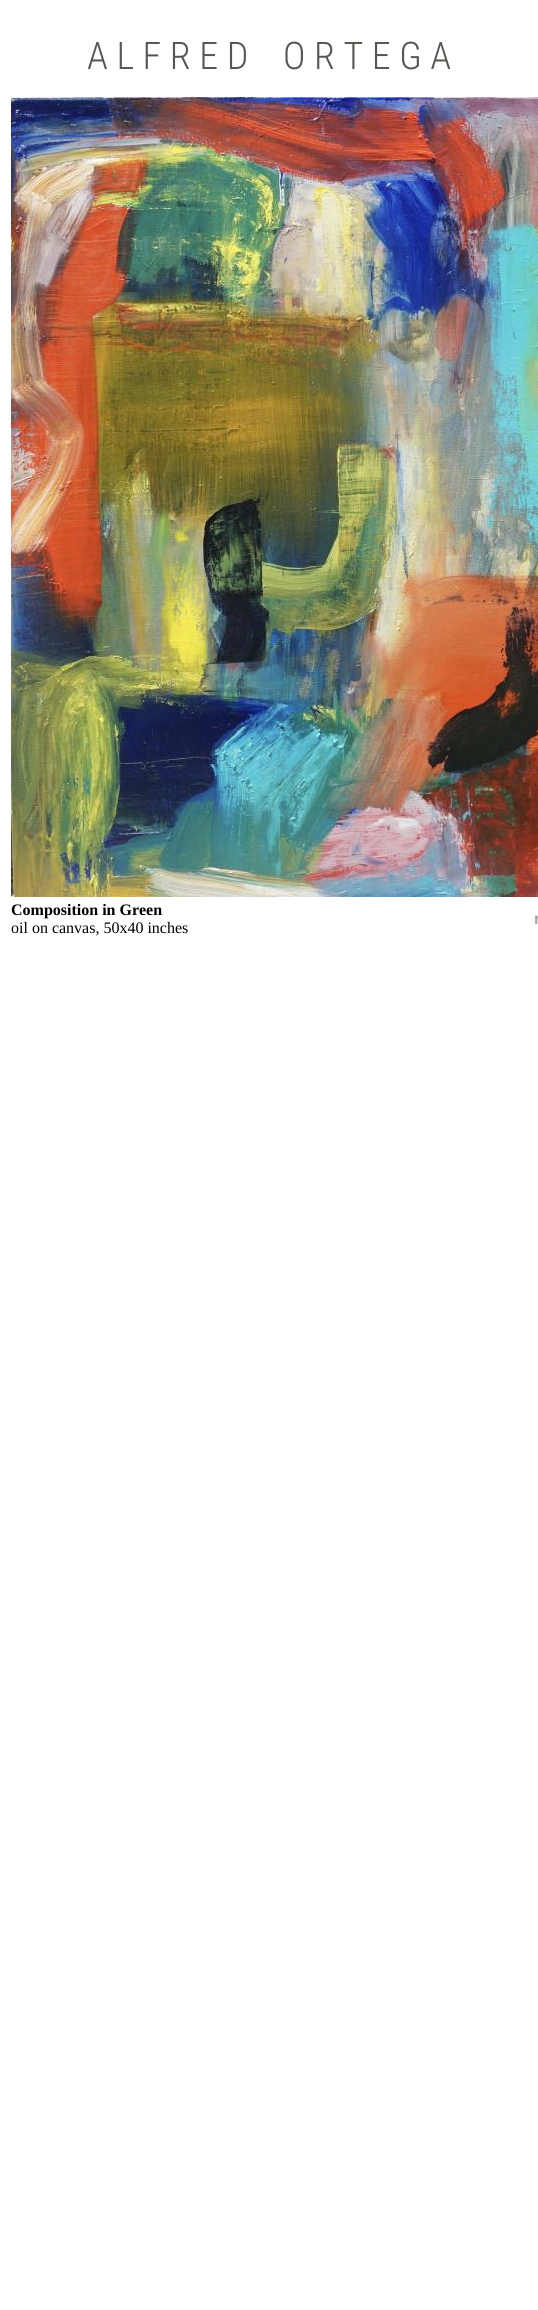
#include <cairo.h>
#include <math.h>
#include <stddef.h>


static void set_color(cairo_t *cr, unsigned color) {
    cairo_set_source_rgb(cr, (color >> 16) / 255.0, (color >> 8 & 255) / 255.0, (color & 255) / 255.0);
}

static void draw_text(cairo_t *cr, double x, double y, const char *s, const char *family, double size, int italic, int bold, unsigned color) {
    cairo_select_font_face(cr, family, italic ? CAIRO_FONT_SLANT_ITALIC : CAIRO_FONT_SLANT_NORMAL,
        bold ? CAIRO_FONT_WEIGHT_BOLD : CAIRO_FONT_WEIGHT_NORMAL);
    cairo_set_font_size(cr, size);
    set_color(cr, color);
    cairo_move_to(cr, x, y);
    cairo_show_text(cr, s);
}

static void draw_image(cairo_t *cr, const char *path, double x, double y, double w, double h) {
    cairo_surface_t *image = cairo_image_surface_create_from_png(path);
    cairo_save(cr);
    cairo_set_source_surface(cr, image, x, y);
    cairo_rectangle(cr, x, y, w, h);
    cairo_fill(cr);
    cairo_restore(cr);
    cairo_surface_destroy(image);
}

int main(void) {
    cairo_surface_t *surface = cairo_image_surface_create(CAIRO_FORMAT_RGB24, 538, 2310);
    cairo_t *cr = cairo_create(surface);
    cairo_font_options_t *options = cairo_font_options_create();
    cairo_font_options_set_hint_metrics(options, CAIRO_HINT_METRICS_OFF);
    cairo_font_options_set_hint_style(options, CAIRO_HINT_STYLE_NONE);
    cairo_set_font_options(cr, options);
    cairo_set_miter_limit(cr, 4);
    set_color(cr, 0xFFFFFF);
    cairo_paint(cr);
    draw_text(cr, 87, 69, "A L F R E D", "Roboto Condensed Light", 38, 0, 0, 0x595651);
    draw_text(cr, 283, 69, "O R T E G A", "Roboto Condensed Light", 38, 0, 0, 0x595651);
    draw_image(cr, "assets/img1.png", 11, 97, 527, 800);
    draw_text(cr, 11, 915, "Composition in Green", "Liberation Serif", 16, 0, 1, 0x000000);
    draw_text(cr, 11, 933, "oil on canvas, 50x40 inches", "Liberation Serif", 16, 0, 0, 0x000000);
    draw_text(cr, 534, 924, "r", "Liberation Sans", 16, 0, 1, 0xA5A3A4);
    cairo_surface_write_to_png(surface, "output.png");
    cairo_font_options_destroy(options);
    cairo_destroy(cr);
    cairo_surface_destroy(surface);
    return 0;
}
